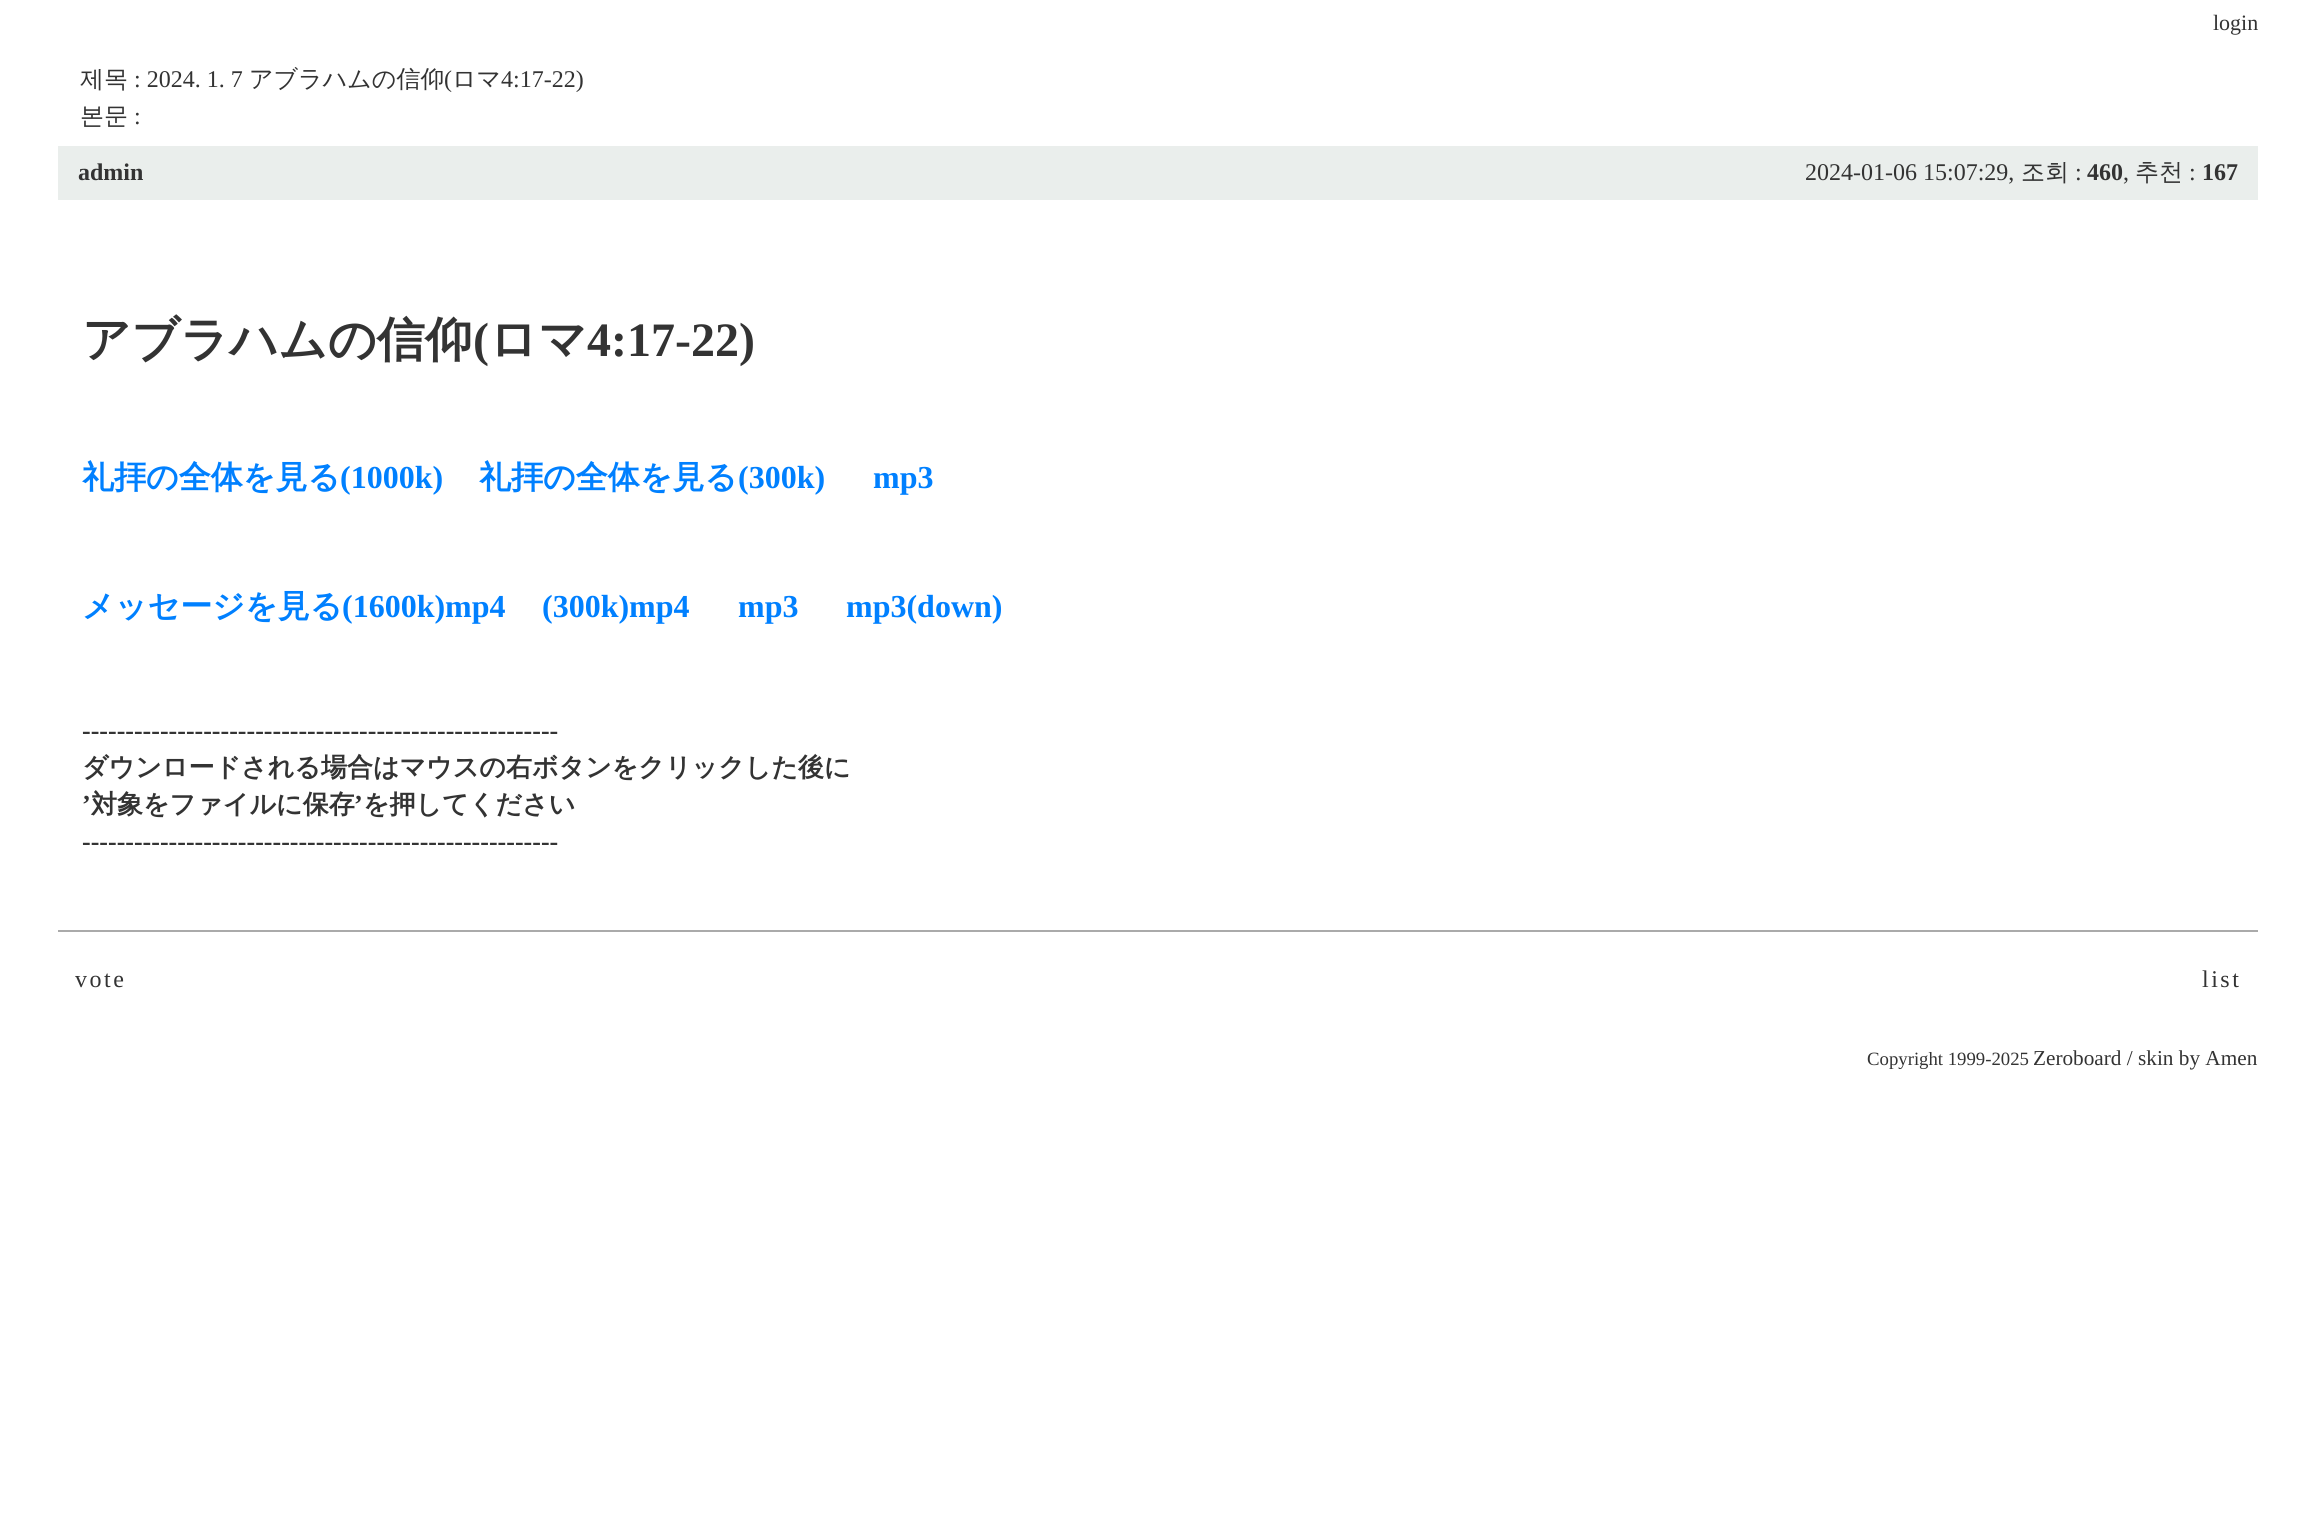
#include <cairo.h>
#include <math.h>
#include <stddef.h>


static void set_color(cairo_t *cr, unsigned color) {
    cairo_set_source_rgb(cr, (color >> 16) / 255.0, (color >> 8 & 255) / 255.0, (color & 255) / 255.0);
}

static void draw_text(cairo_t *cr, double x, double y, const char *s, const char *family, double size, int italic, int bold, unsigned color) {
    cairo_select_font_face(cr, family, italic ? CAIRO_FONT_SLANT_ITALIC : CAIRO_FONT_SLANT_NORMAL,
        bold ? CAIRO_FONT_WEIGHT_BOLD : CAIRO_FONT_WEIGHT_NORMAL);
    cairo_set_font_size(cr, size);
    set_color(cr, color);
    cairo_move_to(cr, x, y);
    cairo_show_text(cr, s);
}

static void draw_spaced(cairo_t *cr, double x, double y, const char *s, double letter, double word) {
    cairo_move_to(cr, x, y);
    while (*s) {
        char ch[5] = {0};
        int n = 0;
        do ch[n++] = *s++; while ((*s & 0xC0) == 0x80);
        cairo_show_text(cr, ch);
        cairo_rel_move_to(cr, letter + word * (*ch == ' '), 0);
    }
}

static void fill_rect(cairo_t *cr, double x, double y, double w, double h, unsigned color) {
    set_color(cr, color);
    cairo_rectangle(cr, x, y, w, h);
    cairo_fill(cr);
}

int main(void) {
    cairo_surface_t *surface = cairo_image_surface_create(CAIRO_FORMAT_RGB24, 2315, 1518);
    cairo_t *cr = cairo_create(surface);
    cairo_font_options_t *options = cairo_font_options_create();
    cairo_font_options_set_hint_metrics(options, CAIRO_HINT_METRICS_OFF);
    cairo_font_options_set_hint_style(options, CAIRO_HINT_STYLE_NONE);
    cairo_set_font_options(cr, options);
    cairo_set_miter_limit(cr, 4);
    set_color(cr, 0xFFFFFF);
    cairo_paint(cr);
    draw_text(cr, 2213, 30, "login", "Liberation Serif", 22, 0, 0, 0x333333);
    draw_text(cr, 80, 87, "제목", "WenQuanYi Zen Hei Medium", 24, 0, 0, 0x333333);
    draw_text(cr, 134, 87, ": 2024. 1. 7", "Liberation Serif", 24, 0, 0, 0x333333);
    draw_text(cr, 249, 87, "アブラハムの信仰", "WenQuanYi Zen Hei Medium", 24, 0, 0, 0x333333);
    draw_text(cr, 444, 87, "(", "Liberation Serif", 24, 0, 0, 0x333333);
    draw_text(cr, 452, 87, "ロマ", "WenQuanYi Zen Hei Medium", 24, 0, 0, 0x333333);
    draw_text(cr, 501, 87, "4:17-22)", "Liberation Serif", 24, 0, 0, 0x333333);
    draw_text(cr, 80, 124, "본문", "WenQuanYi Zen Hei Medium", 24, 0, 0, 0x333333);
    draw_text(cr, 134, 124, ":", "Liberation Serif", 24, 0, 0, 0x333333);
    fill_rect(cr, 58, 146, 2200, 54, 0xEAEEEC);
    draw_text(cr, 78, 180, "admin", "Liberation Serif", 24, 0, 1, 0x333333);
    draw_text(cr, 1805, 180, "2024-01-06 15:07:29,", "Liberation Serif", 24, 0, 0, 0x333333);
    draw_text(cr, 2021, 180, "조회", "WenQuanYi Zen Hei Medium", 24, 0, 0, 0x333333);
    draw_text(cr, 2075, 180, ":", "Liberation Serif", 24, 0, 0, 0x333333);
    draw_text(cr, 2087, 180, "460", "Liberation Serif", 24, 0, 1, 0x333333);
    draw_text(cr, 2123, 180, ",", "Liberation Serif", 24, 0, 0, 0x333333);
    draw_text(cr, 2135, 180, "추천", "WenQuanYi Zen Hei Medium", 24, 0, 0, 0x333333);
    draw_text(cr, 2189, 180, ":", "Liberation Serif", 24, 0, 0, 0x333333);
    draw_text(cr, 2202, 180, "167", "Liberation Serif", 24, 0, 1, 0x333333);
    draw_text(cr, 82, 356, "アブラハムの信仰", "WenQuanYi Zen Hei", 48, 0, 1, 0x333333);
    draw_text(cr, 473, 356, "(", "Liberation Serif", 48, 0, 1, 0x333333);
    draw_text(cr, 489, 356, "ロマ", "WenQuanYi Zen Hei", 48, 0, 1, 0x333333);
    draw_text(cr, 587, 356, "4:17-22)", "Liberation Serif", 48, 0, 1, 0x333333);
    draw_text(cr, 82, 488, "礼拝の全体を見る", "WenQuanYi Zen Hei", 32, 0, 1, 0x0080FF);
    draw_text(cr, 340, 488, "(1000k)", "Liberation Serif", 32, 0, 1, 0x0080FF);
    draw_text(cr, 479, 488, "礼拝の全体を見る", "WenQuanYi Zen Hei", 32, 0, 1, 0x0080FF);
    draw_text(cr, 738, 488, "(300k)", "Liberation Serif", 32, 0, 1, 0x0080FF);
    draw_text(cr, 873, 488, "mp3", "Liberation Serif", 32, 0, 1, 0x0080FF);
    draw_text(cr, 82, 617, "メッセージを見る", "WenQuanYi Zen Hei", 32, 0, 1, 0x0080FF);
    draw_text(cr, 342, 617, "(1600k)mp4", "Liberation Serif", 32, 0, 1, 0x0080FF);
    draw_text(cr, 542, 617, "(300k)mp4", "Liberation Serif", 32, 0, 1, 0x0080FF);
    draw_text(cr, 738, 617, "mp3", "Liberation Serif", 32, 0, 1, 0x0080FF);
    draw_text(cr, 846, 617, "mp3(down)", "Liberation Serif", 32, 0, 1, 0x0080FF);
    draw_text(cr, 82, 739, "-------------------------------------------------------", "Liberation Serif", 26, 0, 1, 0x333333);
    draw_text(cr, 82, 776, "ダウンロードされる場合はマウスの右ボタンをクリックした後に", "WenQuanYi Zen Hei", 26, 0, 1, 0x333333);
    draw_text(cr, 82, 813, "’", "Liberation Serif", 26, 0, 1, 0x333333);
    draw_text(cr, 91, 813, "対象をファイルに保存", "WenQuanYi Zen Hei", 26, 0, 1, 0x333333);
    draw_text(cr, 354, 813, "’", "Liberation Serif", 26, 0, 1, 0x333333);
    draw_text(cr, 363, 813, "を押してください", "WenQuanYi Zen Hei", 26, 0, 1, 0x333333);
    draw_text(cr, 82, 850, "-------------------------------------------------------", "Liberation Serif", 26, 0, 1, 0x333333);
    fill_rect(cr, 58, 930, 2200, 2, 0xAAAAAA);
    cairo_select_font_face(cr, "Liberation Serif", CAIRO_FONT_SLANT_NORMAL, CAIRO_FONT_WEIGHT_NORMAL);
    cairo_set_font_size(cr, 24);
    set_color(cr, 0x333333);
    draw_spaced(cr, 75, 987, "vote", 2.5, 0);
    draw_spaced(cr, 2202, 987, "list", 2.5, 0);
    draw_text(cr, 1867, 1065, "Copyright 1999-2025", "Liberation Serif", 18.75, 0, 0, 0x333333);
    draw_text(cr, 2033, 1065, "Zeroboard / skin by Amen", "Liberation Serif", 21.25, 0, 0, 0x333333);
    cairo_surface_write_to_png(surface, "output.png");
    cairo_font_options_destroy(options);
    cairo_destroy(cr);
    cairo_surface_destroy(surface);
    return 0;
}
